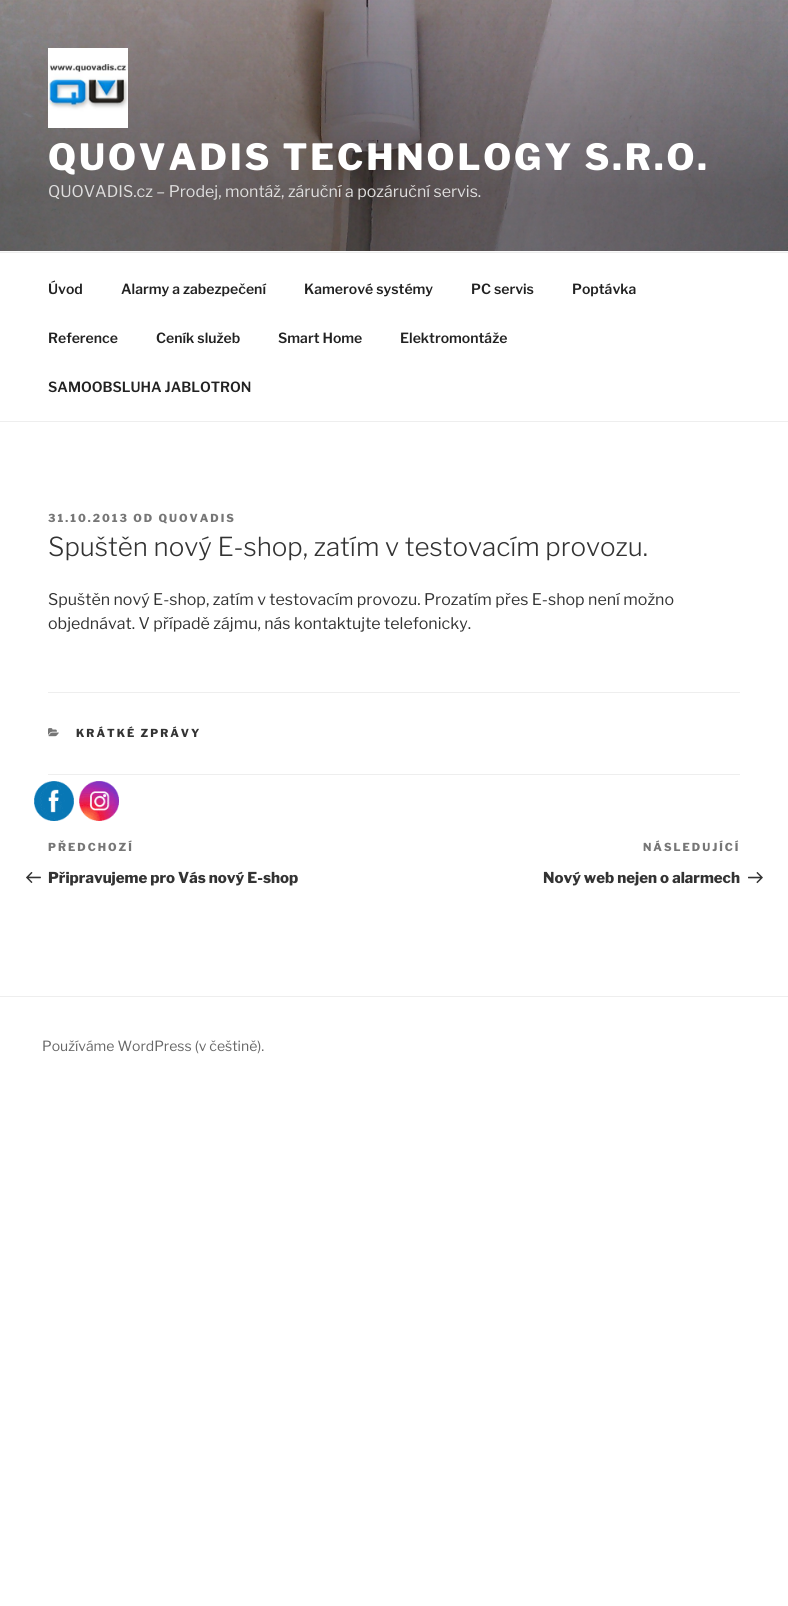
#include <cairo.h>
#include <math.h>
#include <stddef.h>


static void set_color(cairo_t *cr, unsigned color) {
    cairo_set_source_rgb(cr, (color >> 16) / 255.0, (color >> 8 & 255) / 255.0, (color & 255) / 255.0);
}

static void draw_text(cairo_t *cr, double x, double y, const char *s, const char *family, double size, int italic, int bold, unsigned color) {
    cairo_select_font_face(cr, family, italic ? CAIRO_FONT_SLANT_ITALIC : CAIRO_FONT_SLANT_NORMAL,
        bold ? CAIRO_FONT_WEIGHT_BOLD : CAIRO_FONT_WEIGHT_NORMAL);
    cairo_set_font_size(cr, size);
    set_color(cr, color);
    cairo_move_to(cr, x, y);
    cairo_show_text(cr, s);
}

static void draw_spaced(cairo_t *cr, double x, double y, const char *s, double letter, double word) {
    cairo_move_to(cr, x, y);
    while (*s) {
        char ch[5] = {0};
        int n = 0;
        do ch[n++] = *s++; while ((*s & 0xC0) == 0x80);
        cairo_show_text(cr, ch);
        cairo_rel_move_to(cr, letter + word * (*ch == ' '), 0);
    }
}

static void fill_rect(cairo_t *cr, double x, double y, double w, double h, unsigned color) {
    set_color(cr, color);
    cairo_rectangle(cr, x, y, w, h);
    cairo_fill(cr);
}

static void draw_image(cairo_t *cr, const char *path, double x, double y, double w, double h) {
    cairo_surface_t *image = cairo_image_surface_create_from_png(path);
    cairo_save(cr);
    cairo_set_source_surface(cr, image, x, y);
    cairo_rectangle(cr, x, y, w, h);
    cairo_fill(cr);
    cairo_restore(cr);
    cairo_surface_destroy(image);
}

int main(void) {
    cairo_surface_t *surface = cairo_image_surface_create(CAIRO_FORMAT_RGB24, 788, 1606);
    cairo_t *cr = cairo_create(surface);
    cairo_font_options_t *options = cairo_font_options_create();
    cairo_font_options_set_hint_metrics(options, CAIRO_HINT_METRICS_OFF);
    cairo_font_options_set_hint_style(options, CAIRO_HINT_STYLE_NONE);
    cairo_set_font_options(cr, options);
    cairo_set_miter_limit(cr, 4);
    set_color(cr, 0xFFFFFF);
    cairo_paint(cr);
    fill_rect(cr, 0, 251, 788, 1, 0xFAFAFA);
    draw_image(cr, "assets/img1.png", 0, 0, 788, 251);
    draw_image(cr, "assets/img2.png", 48, 48, 80, 80);
    cairo_select_font_face(cr, "Libre Franklin Thin", CAIRO_FONT_SLANT_NORMAL, CAIRO_FONT_WEIGHT_NORMAL);
    cairo_set_font_size(cr, 36);
    set_color(cr, 0xFFFFFF);
    draw_spaced(cr, 48, 170, "QUOVADIS TECHNOLOGY S.R.O.", 2.9, 0);
    draw_text(cr, 48, 197, "QUOVADIS.cz – Prodej, montáž, záruční a pozáruční servis.", "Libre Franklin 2 Thin", 16, 0, 0, 0xDFDEDE);
    fill_rect(cr, 0, 252, 788, 1, 0xEEEEEE);
    fill_rect(cr, 0, 421, 788, 1, 0xEEEEEE);
    draw_text(cr, 48, 294, "Úvod", "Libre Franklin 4 Thin", 14, 0, 0, 0x222222);
    draw_text(cr, 121, 294, "Alarmy a zabezpečení", "Libre Franklin 4 Thin", 14, 0, 0, 0x222222);
    draw_text(cr, 304, 294, "Kamerové systémy", "Libre Franklin 4 Thin", 14, 0, 0, 0x222222);
    draw_text(cr, 471, 294, "PC servis", "Libre Franklin 4 Thin", 14, 0, 0, 0x222222);
    draw_text(cr, 572, 294, "Poptávka", "Libre Franklin 4 Thin", 14, 0, 0, 0x222222);
    draw_text(cr, 48, 343, "Reference", "Libre Franklin 4 Thin", 14, 0, 0, 0x222222);
    draw_text(cr, 156, 343, "Ceník služeb", "Libre Franklin 4 Thin", 14, 0, 0, 0x222222);
    draw_text(cr, 278, 343, "Smart Home", "Libre Franklin 4 Thin", 14, 0, 0, 0x222222);
    draw_text(cr, 400, 343, "Elektromontáže", "Libre Franklin 4 Thin", 14, 0, 0, 0x222222);
    draw_text(cr, 48, 392, "SAMOOBSLUHA JABLOTRON", "Libre Franklin 4 Thin", 14, 0, 0, 0x222222);
    cairo_select_font_face(cr, "Libre Franklin Thin", CAIRO_FONT_SLANT_NORMAL, CAIRO_FONT_WEIGHT_NORMAL);
    cairo_set_font_size(cr, 11);
    set_color(cr, 0x767676);
    draw_spaced(cr, 48, 522, "31.10.2013 OD QUOVADIS", 2, 0);
    draw_text(cr, 48, 556, "Spuštěn nový E-shop, zatím v testovacím provozu.", "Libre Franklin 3 Thin", 26, 0, 0, 0x333333);
    draw_text(cr, 48, 605, "Spuštěn nový E-shop, zatím v testovacím provozu. Prozatím přes E-shop není možno", "Libre Franklin 2 Thin", 16, 0, 0, 0x333333);
    draw_text(cr, 48, 629, "objednávat. V případě zájmu, nás kontaktujte telefonicky.", "Libre Franklin 2 Thin", 16, 0, 0, 0x333333);
    fill_rect(cr, 48, 692, 692, 1, 0xEEEEEE);
    fill_rect(cr, 48, 774, 692, 1, 0xEEEEEE);
    draw_image(cr, "assets/img3.png", 48, 728, 11, 9);
    cairo_select_font_face(cr, "Libre Franklin Thin", CAIRO_FONT_SLANT_NORMAL, CAIRO_FONT_WEIGHT_NORMAL);
    cairo_set_font_size(cr, 11);
    set_color(cr, 0x333333);
    draw_spaced(cr, 76, 737, "KRÁTKÉ ZPRÁVY", 2, 0);
    set_color(cr, 0x767676);
    draw_spaced(cr, 48, 851, "PŘEDCHOZÍ", 2, 0);
    draw_image(cr, "assets/img4.png", 26, 872, 15, 11);
    draw_text(cr, 48, 883, "Připravujeme pro Vás nový E-shop", "Libre Franklin Thin", 15, 0, 0, 0x333333);
    cairo_set_font_size(cr, 11);
    set_color(cr, 0x767676);
    draw_spaced(cr, 643, 851, "NÁSLEDUJÍCÍ", 2, 0);
    draw_text(cr, 543, 883, "Nový web nejen o alarmech", "Libre Franklin Thin", 15, 0, 0, 0x333333);
    draw_image(cr, "assets/img5.png", 748, 872, 15, 12);
    fill_rect(cr, 0, 996, 788, 1, 0xEEEEEE);
    draw_text(cr, 42, 1051, "Používáme WordPress (v češtině).", "Libre Franklin 2 Thin", 14, 0, 0, 0x666666);
    draw_image(cr, "assets/img6.png", 34, 781, 40, 40);
    draw_image(cr, "assets/img7.png", 79, 781, 40, 40);
    cairo_surface_write_to_png(surface, "output.png");
    cairo_font_options_destroy(options);
    cairo_destroy(cr);
    cairo_surface_destroy(surface);
    return 0;
}
